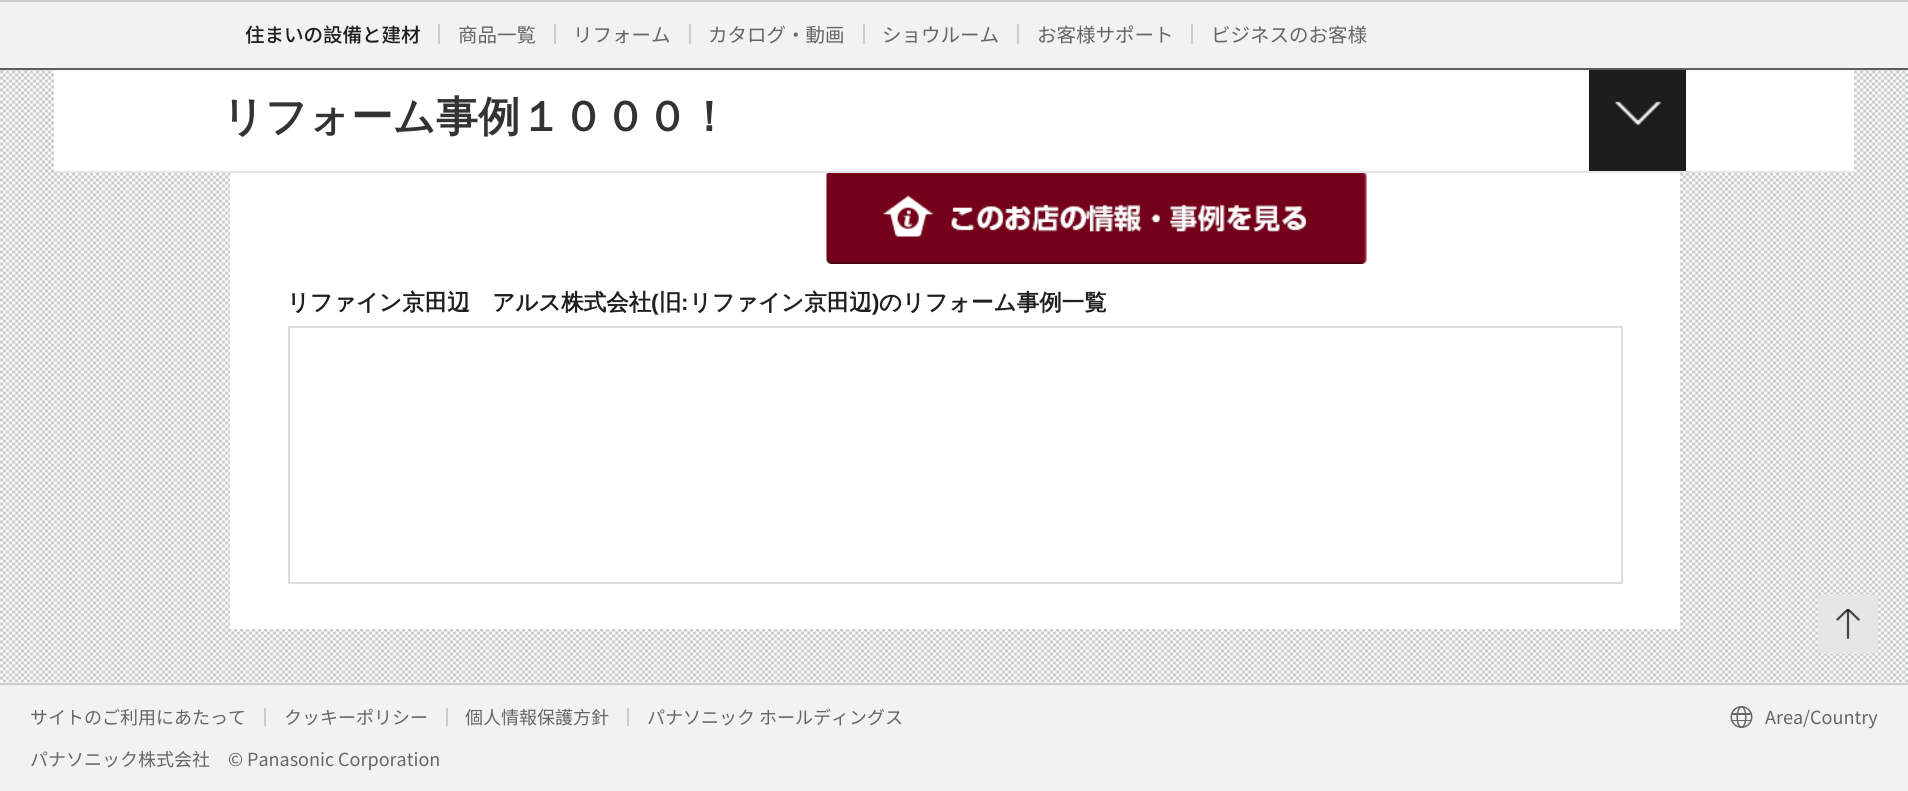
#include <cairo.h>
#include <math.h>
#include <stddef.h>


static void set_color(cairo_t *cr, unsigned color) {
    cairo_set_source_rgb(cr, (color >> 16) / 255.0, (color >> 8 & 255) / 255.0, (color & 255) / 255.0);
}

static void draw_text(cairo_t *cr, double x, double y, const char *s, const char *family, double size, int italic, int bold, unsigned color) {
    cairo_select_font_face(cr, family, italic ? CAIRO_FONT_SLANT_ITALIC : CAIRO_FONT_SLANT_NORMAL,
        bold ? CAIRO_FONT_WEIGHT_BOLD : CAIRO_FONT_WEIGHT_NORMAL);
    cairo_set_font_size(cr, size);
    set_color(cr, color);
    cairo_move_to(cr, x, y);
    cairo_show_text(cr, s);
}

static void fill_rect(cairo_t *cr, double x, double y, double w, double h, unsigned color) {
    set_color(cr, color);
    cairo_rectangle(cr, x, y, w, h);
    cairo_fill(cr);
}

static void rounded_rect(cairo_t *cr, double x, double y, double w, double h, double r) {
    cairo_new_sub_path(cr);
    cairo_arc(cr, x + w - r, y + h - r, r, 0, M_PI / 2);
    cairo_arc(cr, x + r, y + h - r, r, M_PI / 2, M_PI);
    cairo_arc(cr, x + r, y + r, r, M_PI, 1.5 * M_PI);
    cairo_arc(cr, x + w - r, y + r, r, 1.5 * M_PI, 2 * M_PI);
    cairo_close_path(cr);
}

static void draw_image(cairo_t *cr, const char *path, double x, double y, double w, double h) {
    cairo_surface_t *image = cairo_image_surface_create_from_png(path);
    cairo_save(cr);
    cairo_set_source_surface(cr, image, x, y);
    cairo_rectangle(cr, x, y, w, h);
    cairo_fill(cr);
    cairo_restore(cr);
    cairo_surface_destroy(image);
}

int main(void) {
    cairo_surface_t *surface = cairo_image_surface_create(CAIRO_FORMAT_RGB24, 1908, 791);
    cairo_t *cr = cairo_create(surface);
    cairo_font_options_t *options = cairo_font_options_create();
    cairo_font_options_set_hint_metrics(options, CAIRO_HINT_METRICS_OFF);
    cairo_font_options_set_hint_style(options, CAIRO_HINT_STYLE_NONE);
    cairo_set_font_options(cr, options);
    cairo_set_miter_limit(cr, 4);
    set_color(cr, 0xF2F2F2);
    cairo_paint(cr);
    fill_rect(cr, 0, 68, 1908, 2, 0x5D5D5D);
    fill_rect(cr, 0, 0, 1908, 2, 0xCCCCCC);
    draw_text(cr, 245, 42, "住まいの設備と建材", "Noto Sans SC Medium", 19.5, 0, 0, 0x1F1F1F);
    fill_rect(cr, 438, 24, 2, 20, 0xCCCCCC);
    draw_text(cr, 458, 42, "商品一覧", "Noto Sans SC", 19.5, 0, 0, 0x666666);
    fill_rect(cr, 554, 24, 2, 20, 0xCCCCCC);
    draw_text(cr, 573, 42, "リフォーム", "Noto Sans SC", 19.5, 0, 0, 0x666666);
    fill_rect(cr, 689, 24, 2, 20, 0xCCCCCC);
    draw_text(cr, 708, 42, "カタログ・動画", "Noto Sans SC", 19.5, 0, 0, 0x666666);
    fill_rect(cr, 863, 24, 2, 20, 0xCCCCCC);
    draw_text(cr, 882, 42, "ショウルーム", "Noto Sans SC", 19.5, 0, 0, 0x666666);
    fill_rect(cr, 1017, 24, 2, 20, 0xCCCCCC);
    draw_text(cr, 1037, 42, "お客様サポート", "Noto Sans SC", 19.5, 0, 0, 0x666666);
    fill_rect(cr, 1191, 24, 2, 20, 0xCCCCCC);
    draw_text(cr, 1211, 42, "ビジネスのお客様", "Noto Sans SC", 19.5, 0, 0, 0x666666);
    fill_rect(cr, 0, 682, 1908, 1, 0xFFFFFF);
    draw_image(cr, "assets/img2.png", 0, 70, 1908, 613);
    fill_rect(cr, 54, 70, 1800, 101, 0xFFFFFF);
    fill_rect(cr, 54, 171, 1800, 2, 0xE6E6E6);
    draw_text(cr, 222, 131, "リフォーム事例１０００！", "WenQuanYi Zen Hei", 42, 0, 1, 0x333333);
    fill_rect(cr, 1589, 70, 97, 101, 0x1D1D1D);
    draw_image(cr, "assets/img1.png", 1615, 101, 46, 24);
    fill_rect(cr, 230, 173, 1450, 456, 0xFFFFFF);
    draw_image(cr, "assets/img3.png", 826, 173, 541, 91);
    draw_text(cr, 287, 310, "リファイン京田辺　アルス株式会社", "WenQuanYi Zen Hei", 22.5, 0, 1, 0x1F1F1F);
    draw_text(cr, 651, 310, "(", "Liberation Sans", 22.5, 0, 1, 0x1F1F1F);
    draw_text(cr, 659, 310, "旧", "WenQuanYi Zen Hei", 22.5, 0, 1, 0x1F1F1F);
    draw_text(cr, 681, 310, ":", "Liberation Sans", 22.5, 0, 1, 0x1F1F1F);
    draw_text(cr, 689, 310, "リファイン京田辺", "WenQuanYi Zen Hei", 22.5, 0, 1, 0x1F1F1F);
    draw_text(cr, 872, 310, ")", "Liberation Sans", 22.5, 0, 1, 0x1F1F1F);
    draw_text(cr, 879, 310, "のリフォーム事例一覧", "WenQuanYi Zen Hei", 22.5, 0, 1, 0x1F1F1F);
    cairo_rectangle(cr, 289, 327, 1333, 256);
    set_color(cr, 0xDDDDDD);
    cairo_stroke(cr);
    fill_rect(cr, 0, 683, 1908, 2, 0xCCCCCC);
    set_color(cr, 0xE6E6E6);
    rounded_rect(cr, 1818, 594, 60, 60, 6);
    cairo_fill(cr);
    draw_image(cr, "assets/img4.png", 1836, 609, 24, 30);
    draw_text(cr, 30, 724, "サイトのご利用にあたって", "Noto Sans SC", 18, 0, 0, 0x666666);
    fill_rect(cr, 264, 708, 2, 18, 0xCCCCCC);
    draw_text(cr, 284, 724, "クッキーポリシー", "Noto Sans SC", 18, 0, 0, 0x666666);
    fill_rect(cr, 446, 708, 2, 18, 0xCCCCCC);
    draw_text(cr, 465, 724, "個人情報保護方針", "Noto Sans SC", 18, 0, 0, 0x666666);
    fill_rect(cr, 627, 708, 2, 18, 0xCCCCCC);
    draw_text(cr, 647, 724, "パナソニック ホールディングス", "Noto Sans SC", 18, 0, 0, 0x666666);
    draw_image(cr, "assets/img5.png", 1730, 706, 23, 22);
    draw_text(cr, 1765, 724, "Area/Country", "Noto Sans SC", 18, 0, 0, 0x666666);
    draw_text(cr, 30, 766, "パナソニック株式会社", "Noto Sans SC", 18, 0, 0, 0x666666);
    draw_text(cr, 228, 766, "© Panasonic Corporation", "Noto Sans SC", 18, 0, 0, 0x666666);
    cairo_surface_write_to_png(surface, "output.png");
    cairo_font_options_destroy(options);
    cairo_destroy(cr);
    cairo_surface_destroy(surface);
    return 0;
}
